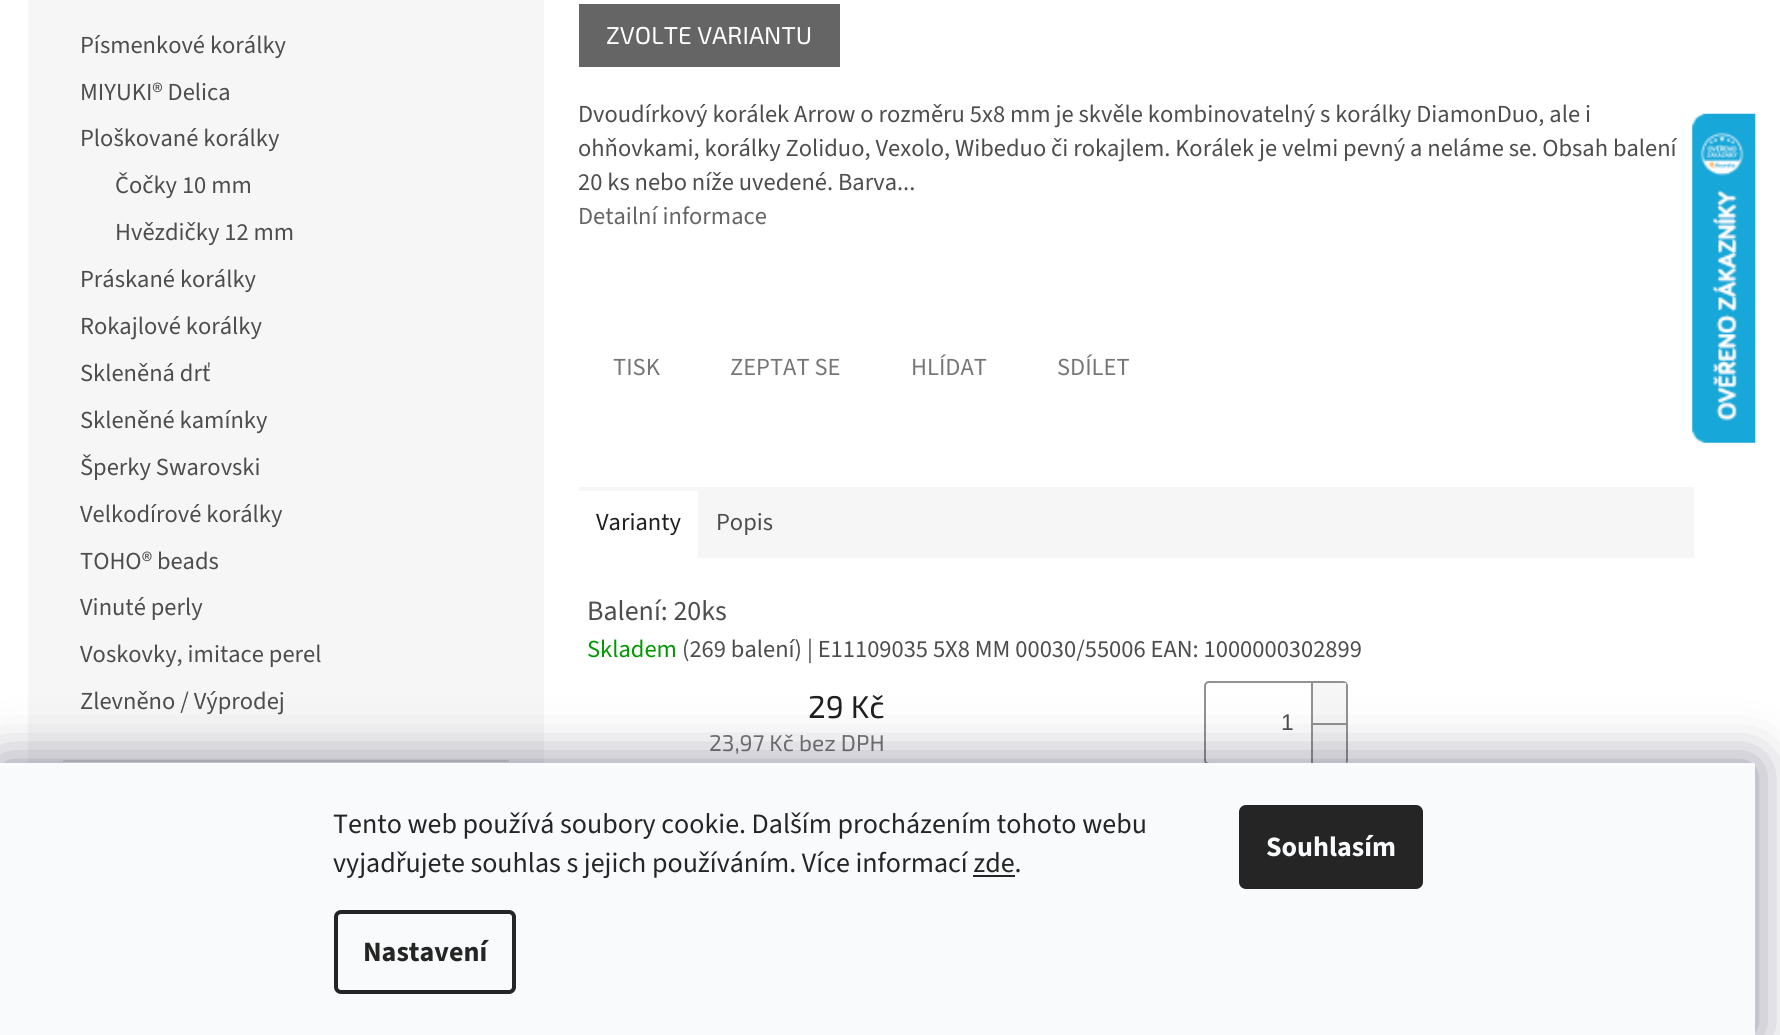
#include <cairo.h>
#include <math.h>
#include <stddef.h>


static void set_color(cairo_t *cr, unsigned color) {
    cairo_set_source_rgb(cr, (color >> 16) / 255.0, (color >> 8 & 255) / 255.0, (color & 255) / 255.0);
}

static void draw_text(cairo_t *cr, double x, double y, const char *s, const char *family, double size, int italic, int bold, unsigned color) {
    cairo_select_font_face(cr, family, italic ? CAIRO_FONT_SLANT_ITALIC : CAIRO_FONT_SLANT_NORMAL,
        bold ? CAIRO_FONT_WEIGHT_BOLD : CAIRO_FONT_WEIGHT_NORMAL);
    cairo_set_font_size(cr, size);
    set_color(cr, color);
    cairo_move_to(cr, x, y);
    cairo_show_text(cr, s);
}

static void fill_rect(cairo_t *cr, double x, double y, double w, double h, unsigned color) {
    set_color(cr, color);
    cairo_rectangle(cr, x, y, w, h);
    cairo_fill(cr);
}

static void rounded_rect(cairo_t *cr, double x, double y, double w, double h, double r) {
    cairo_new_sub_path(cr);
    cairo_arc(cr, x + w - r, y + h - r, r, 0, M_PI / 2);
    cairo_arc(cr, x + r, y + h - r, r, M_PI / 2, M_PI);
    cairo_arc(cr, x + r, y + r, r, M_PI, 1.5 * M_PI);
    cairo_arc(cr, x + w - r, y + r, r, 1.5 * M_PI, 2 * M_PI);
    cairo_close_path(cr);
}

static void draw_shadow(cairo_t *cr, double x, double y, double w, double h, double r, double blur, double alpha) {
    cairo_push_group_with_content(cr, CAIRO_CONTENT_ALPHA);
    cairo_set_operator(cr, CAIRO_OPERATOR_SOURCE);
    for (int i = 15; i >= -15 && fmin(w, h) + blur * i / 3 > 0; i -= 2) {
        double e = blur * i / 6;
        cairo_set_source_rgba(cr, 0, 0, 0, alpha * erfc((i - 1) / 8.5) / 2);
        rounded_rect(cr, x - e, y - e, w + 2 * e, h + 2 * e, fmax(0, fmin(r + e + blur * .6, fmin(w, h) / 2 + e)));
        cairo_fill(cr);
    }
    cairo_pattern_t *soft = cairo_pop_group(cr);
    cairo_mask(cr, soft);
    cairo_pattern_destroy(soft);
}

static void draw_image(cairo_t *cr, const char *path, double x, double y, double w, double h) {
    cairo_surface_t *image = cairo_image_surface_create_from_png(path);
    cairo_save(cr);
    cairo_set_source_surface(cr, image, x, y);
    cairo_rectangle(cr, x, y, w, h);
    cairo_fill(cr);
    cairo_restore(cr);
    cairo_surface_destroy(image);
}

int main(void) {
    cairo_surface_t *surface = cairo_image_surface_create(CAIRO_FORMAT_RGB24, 1780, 1035);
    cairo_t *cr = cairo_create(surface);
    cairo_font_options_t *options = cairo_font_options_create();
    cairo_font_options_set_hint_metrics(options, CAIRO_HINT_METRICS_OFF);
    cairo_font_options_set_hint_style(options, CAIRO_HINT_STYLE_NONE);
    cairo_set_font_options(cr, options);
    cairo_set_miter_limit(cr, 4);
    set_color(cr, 0xFFFFFF);
    cairo_paint(cr);
    fill_rect(cr, 28, 0, 516, 763, 0xF6F6F6);
    fill_rect(cr, 63, 760, 446, 2, 0xDADADA);
    draw_text(cr, 80, 53, "Písmenkové korálky", "Source Sans 3", 24.5, 0, 0, 0x4D4D4D);
    draw_text(cr, 80, 100, "MIYUKI® Delica", "Source Sans 3", 24.5, 0, 0, 0x4D4D4D);
    draw_text(cr, 80, 146, "Ploškované korálky", "Source Sans 3", 24.5, 0, 0, 0x4D4D4D);
    draw_text(cr, 115, 193, "Čočky 10 mm", "Source Sans 3", 24.5, 0, 0, 0x4D4D4D);
    draw_text(cr, 115, 240, "Hvězdičky 12 mm", "Source Sans 3", 24.5, 0, 0, 0x4D4D4D);
    draw_text(cr, 80, 287, "Práskané korálky", "Source Sans 3", 24.5, 0, 0, 0x4D4D4D);
    draw_text(cr, 80, 334, "Rokajlové korálky", "Source Sans 3", 24.5, 0, 0, 0x4D4D4D);
    draw_text(cr, 80, 381, "Skleněná drť", "Source Sans 3", 24.5, 0, 0, 0x4D4D4D);
    draw_text(cr, 80, 428, "Skleněné kamínky", "Source Sans 3", 24.5, 0, 0, 0x4D4D4D);
    draw_text(cr, 80, 475, "Šperky Swarovski", "Source Sans 3", 24.5, 0, 0, 0x4D4D4D);
    draw_text(cr, 80, 522, "Velkodírové korálky", "Source Sans 3", 24.5, 0, 0, 0x4D4D4D);
    draw_text(cr, 80, 569, "TOHO® beads", "Source Sans 3", 24.5, 0, 0, 0x4D4D4D);
    draw_text(cr, 80, 615, "Vinuté perly", "Source Sans 3", 24.5, 0, 0, 0x4D4D4D);
    draw_text(cr, 80, 662, "Voskovky, imitace perel", "Source Sans 3", 24.5, 0, 0, 0x4D4D4D);
    draw_text(cr, 80, 709, "Zlevněno / Výprodej", "Source Sans 3", 24.5, 0, 0, 0x4D4D4D);
    fill_rect(cr, 579, 4, 261, 63, 0x656565);
    draw_text(cr, 606, 44, "ZVOLTE VARIANTU", "Exo 2", 24.5, 0, 0, 0xFFFFFF);
    draw_text(cr, 578, 122, "Dvoudírkový korálek Arrow o rozměru 5x8 mm je skvěle kombinovatelný s korálky DiamonDuo, ale i", "Source Sans 3", 24.5, 0, 0, 0x4D4D4D);
    draw_text(cr, 578, 156, "ohňovkami, korálky Zoliduo, Vexolo, Wibeduo či rokajlem. Korálek je velmi pevný a neláme se. Obsah balení", "Source Sans 3", 24.5, 0, 0, 0x4D4D4D);
    draw_text(cr, 578, 190, "20 ks nebo níže uvedené. Barva...", "Source Sans 3", 24.5, 0, 0, 0x4D4D4D);
    draw_text(cr, 578, 224, "Detailní informace", "Source Sans 3", 24.5, 0, 0, 0x656565);
    draw_text(cr, 613, 375, "TISK", "Source Sans 3", 24.5, 0, 0, 0x767676);
    draw_text(cr, 730, 375, "ZEPTAT SE", "Source Sans 3", 24.5, 0, 0, 0x767676);
    draw_text(cr, 911, 375, "HLÍDAT", "Source Sans 3", 24.5, 0, 0, 0x767676);
    draw_text(cr, 1057, 375, "SDÍLET", "Source Sans 3", 24.5, 0, 0, 0x767676);
    fill_rect(cr, 698, 487, 996, 71, 0xF6F6F6);
    fill_rect(cr, 579, 487, 119, 4, 0xF6F6F6);
    draw_text(cr, 596, 530, "Varianty", "Source Sans 3", 24.5, 0, 0, 0x1F1F1F);
    draw_text(cr, 716, 530, "Popis", "Source Sans 3", 24.5, 0, 0, 0x4D4D4D);
    draw_text(cr, 587, 620, "Balení: 20ks", "Source Sans 3", 28, 0, 0, 0x4D4D4D);
    draw_text(cr, 587, 657, "Skladem", "Source Sans 3", 24.5, 0, 0, 0x009901);
    draw_text(cr, 682, 657, "(269 balení) | E11109035 5X8 MM 00030/55006 EAN: 1000000302899", "Source Sans 3", 24.5, 0, 0, 0x4D4D4D);
    draw_text(cr, 808, 718, "29 Kč", "Exo 2", 31.5, 0, 0, 0x1F1F1F);
    draw_text(cr, 709, 751, "23,97 Kč bez DPH", "Exo 2", 22.75, 0, 0, 0x767676);
    rounded_rect(cr, 1205, 682, 142, 82, 4);
    set_color(cr, 0x919191);
    cairo_stroke(cr);
    draw_text(cr, 1281, 730, "1", "Liberation Sans", 22.75, 0, 0, 0x4D4D4D);
    fill_rect(cr, 1313, 683, 33, 40, 0xF6F6F6);
    fill_rect(cr, 1311, 683, 2, 40, 0x919191);
    fill_rect(cr, 1313, 725, 33, 38, 0xF6F6F6);
    fill_rect(cr, 1311, 723, 35, 2, 0x919191);
    fill_rect(cr, 1311, 723, 2, 40, 0x919191);
    draw_image(cr, "assets/img1.png", 1692, 113, 64, 330);
    set_color(cr, 0x1B1939);
    draw_shadow(cr, 0, 763, 1755, 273, 0, 26, 0.5);
    fill_rect(cr, 0, 763, 1755, 272, 0xF8FAFB);
    draw_text(cr, 333, 833, "Tento web používá soubory cookie. Dalším procházením tohoto webu", "Source Sans 3", 28, 0, 0, 0x252525);
    draw_text(cr, 333, 872, "vyjadřujete souhlas s jejich používáním. Více informací zde.", "Source Sans 3", 28, 0, 0, 0x252525);
    fill_rect(cr, 973, 875, 42, 2, 0x252525);
    rounded_rect(cr, 336, 912, 178, 80, 5);
    cairo_set_line_width(cr, 4);
    cairo_stroke(cr);
    draw_text(cr, 363, 961, "Nastavení", "Source Sans 3", 28, 0, 1, 0x252525);
    rounded_rect(cr, 1239, 805, 184, 84, 7);
    cairo_fill(cr);
    draw_text(cr, 1266, 856, "Souhlasím", "Source Sans 3", 28, 0, 1, 0xF8FAFB);
    cairo_surface_write_to_png(surface, "output.png");
    cairo_font_options_destroy(options);
    cairo_destroy(cr);
    cairo_surface_destroy(surface);
    return 0;
}
